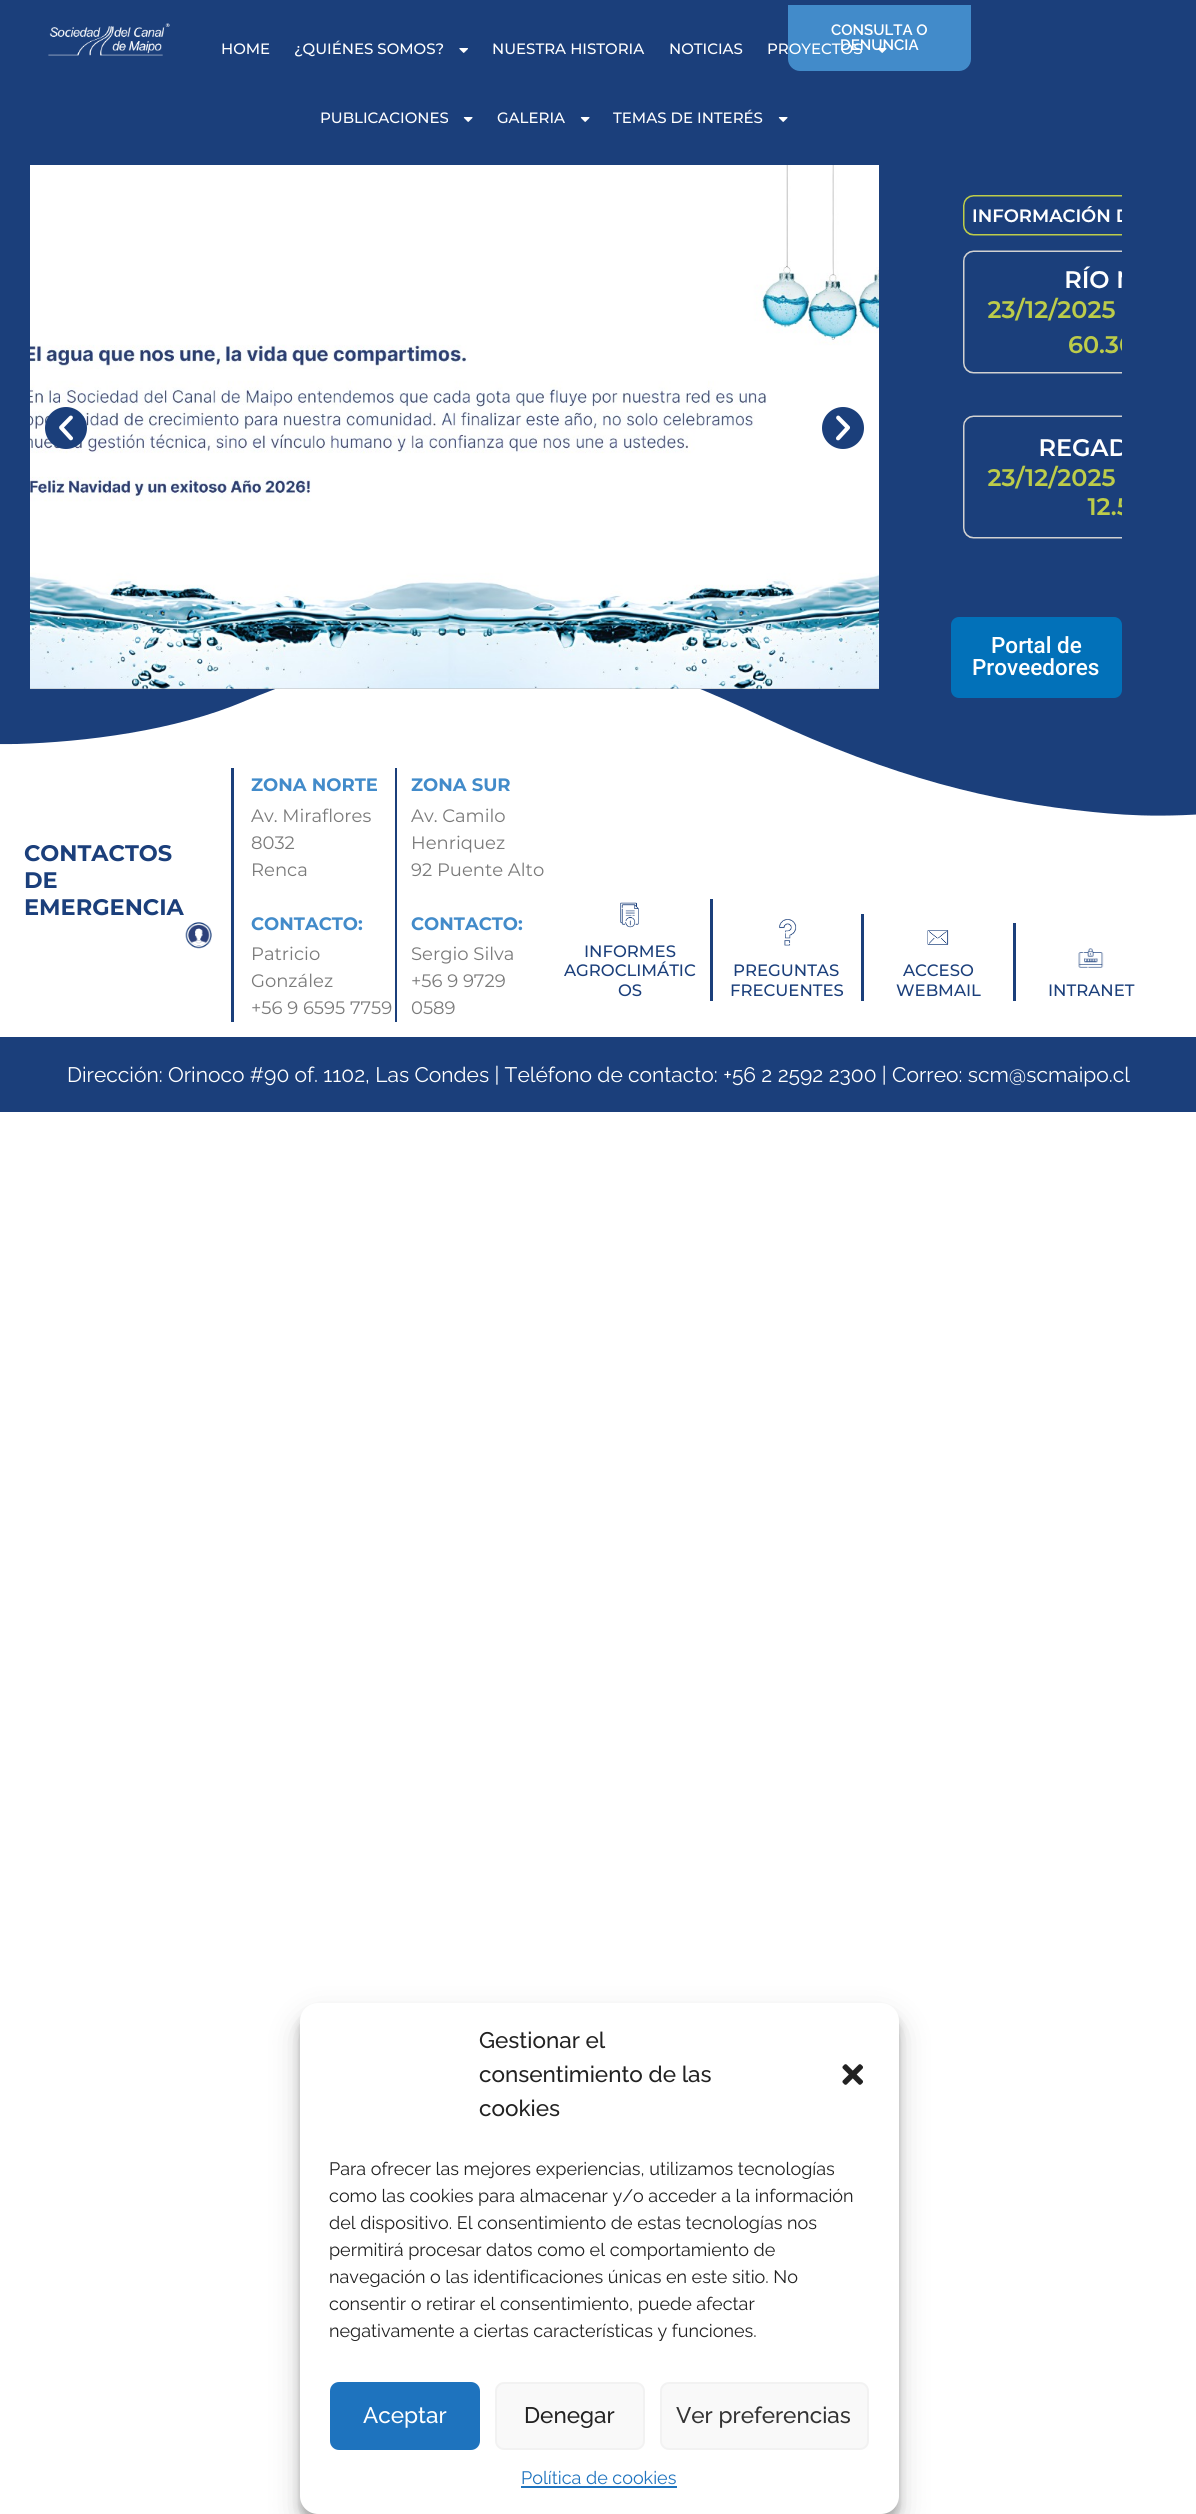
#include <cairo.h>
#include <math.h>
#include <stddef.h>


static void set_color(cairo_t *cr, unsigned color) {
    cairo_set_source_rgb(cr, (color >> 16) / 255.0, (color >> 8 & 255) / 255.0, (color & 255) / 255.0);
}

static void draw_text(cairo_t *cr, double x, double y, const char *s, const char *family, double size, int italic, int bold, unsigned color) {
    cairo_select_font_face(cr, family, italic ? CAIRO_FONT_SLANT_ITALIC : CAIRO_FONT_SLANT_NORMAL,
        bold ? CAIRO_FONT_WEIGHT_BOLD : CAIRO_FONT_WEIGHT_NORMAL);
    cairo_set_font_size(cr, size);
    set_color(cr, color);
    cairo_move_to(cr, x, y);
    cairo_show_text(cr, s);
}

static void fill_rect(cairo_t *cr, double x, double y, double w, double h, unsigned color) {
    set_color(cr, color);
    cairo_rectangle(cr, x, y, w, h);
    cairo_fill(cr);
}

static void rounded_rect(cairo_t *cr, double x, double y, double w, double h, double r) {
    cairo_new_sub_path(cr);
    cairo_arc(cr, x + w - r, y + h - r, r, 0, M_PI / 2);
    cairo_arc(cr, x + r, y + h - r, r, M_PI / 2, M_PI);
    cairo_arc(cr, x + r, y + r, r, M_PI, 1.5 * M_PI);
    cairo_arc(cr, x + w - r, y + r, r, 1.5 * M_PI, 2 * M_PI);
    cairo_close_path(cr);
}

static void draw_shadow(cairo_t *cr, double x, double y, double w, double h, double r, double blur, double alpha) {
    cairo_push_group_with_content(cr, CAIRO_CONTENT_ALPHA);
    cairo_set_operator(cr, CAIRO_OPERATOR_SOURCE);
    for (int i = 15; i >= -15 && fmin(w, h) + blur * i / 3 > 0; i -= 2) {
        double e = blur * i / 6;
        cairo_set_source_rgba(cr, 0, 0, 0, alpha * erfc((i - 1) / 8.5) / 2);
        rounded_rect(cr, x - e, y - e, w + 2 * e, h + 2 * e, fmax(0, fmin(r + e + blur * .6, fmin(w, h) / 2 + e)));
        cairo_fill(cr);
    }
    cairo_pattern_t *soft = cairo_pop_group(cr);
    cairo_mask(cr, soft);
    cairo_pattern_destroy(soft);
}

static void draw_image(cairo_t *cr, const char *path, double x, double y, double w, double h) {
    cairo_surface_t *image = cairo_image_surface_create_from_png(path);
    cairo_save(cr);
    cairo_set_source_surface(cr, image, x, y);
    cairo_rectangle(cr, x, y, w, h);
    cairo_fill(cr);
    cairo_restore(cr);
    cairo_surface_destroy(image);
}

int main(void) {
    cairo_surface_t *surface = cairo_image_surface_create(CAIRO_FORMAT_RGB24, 1196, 2514);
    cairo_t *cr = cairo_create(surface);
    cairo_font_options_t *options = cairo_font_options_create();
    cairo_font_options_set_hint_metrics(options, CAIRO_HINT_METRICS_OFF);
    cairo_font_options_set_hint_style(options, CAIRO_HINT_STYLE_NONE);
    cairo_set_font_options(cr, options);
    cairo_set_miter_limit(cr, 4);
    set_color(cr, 0xFFFFFF);
    cairo_paint(cr);
    fill_rect(cr, 0, 0, 1196, 816, 0x1B3F7B);
    draw_image(cr, "assets/img1.png", 48, 23, 122, 33);
    draw_text(cr, 221, 54, "HOME", "Montserrat Medium", 15, 0, 0, 0xFFFFFF);
    draw_text(cr, 294, 54, "¿QUIÉNES SOMOS?", "Montserrat Medium", 15, 0, 0, 0xFFFFFF);
    draw_image(cr, "assets/img2.png", 459, 48, 9, 5);
    draw_text(cr, 492, 54, "NUESTRA HISTORIA", "Montserrat Medium", 15, 0, 0, 0xFFFFFF);
    draw_text(cr, 669, 54, "NOTICIAS", "Montserrat Medium", 15, 0, 0, 0xFFFFFF);
    set_color(cr, 0x428BCA);
    cairo_new_path(cr);
    cairo_move_to(cr, 788, 5);
    cairo_line_to(cr, 971, 5);
    cairo_line_to(cr, 971, 59);
    cairo_curve_to(cr, 971, 65.5, 965.5, 71, 959, 71);
    cairo_line_to(cr, 800, 71);
    cairo_curve_to(cr, 793.5, 71, 788, 65.5, 788, 59);
    cairo_close_path(cr);
    cairo_fill(cr);
    draw_text(cr, 840, 50, "DENUNCIA", "Raleway SemiBold", 15, 0, 0, 0xFFFFFF);
    draw_text(cr, 767, 54, "PROYECTOS", "Montserrat Medium", 15, 0, 0, 0xFFFFFF);
    draw_image(cr, "assets/img3.png", 877, 48, 10, 5);
    draw_text(cr, 320, 123, "PUBLICACIONES", "Montserrat Medium", 15, 0, 0, 0xFFFFFF);
    draw_image(cr, "assets/img4.png", 463, 117, 10, 5);
    draw_text(cr, 497, 123, "GALERIA", "Montserrat Medium", 15, 0, 0, 0xFFFFFF);
    draw_image(cr, "assets/img4.png", 580, 117, 10, 5);
    draw_text(cr, 613, 123, "TEMAS DE INTERÉS", "Montserrat Medium", 15, 0, 0, 0xFFFFFF);
    draw_image(cr, "assets/img4.png", 778, 117, 10, 5);
    draw_text(cr, 831, 35, "CONSULTA O", "Raleway SemiBold", 15, 0, 0, 0xFFFFFF);
    cairo_new_path(cr);
    cairo_move_to(cr, 1093, 812);
    cairo_curve_to(cr, 992, 802, 894, 778, 765, 718);
    cairo_curve_to(cr, 715, 694, 634, 660, 594, 651);
    cairo_curve_to(cr, 554, 642, 505, 636, 466, 641);
    cairo_curve_to(cr, 448, 643, 427, 644, 380, 655);
    cairo_curve_to(cr, 334, 667, 281, 686, 245, 701);
    cairo_curve_to(cr, 175, 731, 84, 742, 17, 744);
    cairo_curve_to(cr, -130, 747, -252, 686, -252, 686);
    cairo_line_to(cr, -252, 825);
    cairo_line_to(cr, 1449, 825);
    cairo_line_to(cr, 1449, 760);
    cairo_curve_to(cr, 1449, 760, 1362, 796, 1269, 808);
    cairo_curve_to(cr, 1176, 819, 1133, 816, 1093, 812);
    cairo_close_path(cr);
    cairo_fill(cr);
    fill_rect(cr, 30, 688, 849, 1, 0xBBBBBB);
    draw_image(cr, "assets/img5.png", 30, 165, 849, 524);
    set_color(cr, 0x1B3F7B);
    cairo_arc(cr, 66, 428, 18.5, 0, 2 * M_PI);
    cairo_fill_preserve(cr);
    cairo_set_line_width(cr, 5);
    cairo_stroke(cr);
    draw_image(cr, "assets/img6.png", 59, 415, 14, 26);
    cairo_arc(cr, 843, 428, 18.5, 0, 2 * M_PI);
    cairo_fill_preserve(cr);
    cairo_stroke(cr);
    draw_image(cr, "assets/img7.png", 836, 415, 14, 26);
    draw_image(cr, "assets/img8.png", 963, 195, 159, 344);
    set_color(cr, 0x0271B9);
    rounded_rect(cr, 951, 617, 171, 81, 8);
    cairo_fill(cr);
    draw_text(cr, 991, 653, "Portal de", "Roboto Medium", 22.5, 0, 0, 0xFFFFFF);
    draw_text(cr, 972, 675, "Proveedores", "Roboto Medium", 22.5, 0, 0, 0xFFFFFF);
    fill_rect(cr, 231, 768, 3, 254, 0x1B3F7B);
    draw_text(cr, 24, 861, "CONTACTOS", "Montserrat", 22.5, 0, 1, 0x1B3F7B);
    draw_text(cr, 24, 888, "DE", "Montserrat", 22.5, 0, 1, 0x1B3F7B);
    draw_text(cr, 24, 915, "EMERGENCIA", "Montserrat", 22.5, 0, 1, 0x1B3F7B);
    draw_image(cr, "assets/img9.png", 185, 922, 27, 27);
    fill_rect(cr, 395, 768, 2, 254, 0x1B3F7B);
    draw_text(cr, 251, 791, "ZONA NORTE", "Montserrat", 18, 0, 1, 0x428BCA);
    draw_text(cr, 251, 822, "Av. Miraflores", "Montserrat", 18, 0, 0, 0x7A7A7A);
    draw_text(cr, 251, 849, "8032", "Montserrat", 18, 0, 0, 0x7A7A7A);
    draw_text(cr, 251, 876, "Renca", "Montserrat", 18, 0, 0, 0x7A7A7A);
    draw_text(cr, 251, 930, "CONTACTO:", "Montserrat", 18, 0, 1, 0x428BCA);
    draw_text(cr, 251, 960, "Patricio", "Montserrat", 18, 0, 0, 0x7A7A7A);
    draw_text(cr, 251, 987, "González", "Montserrat", 18, 0, 0, 0x7A7A7A);
    draw_text(cr, 251, 1014, "+56 9 6595 7759", "Montserrat", 18, 0, 0, 0x7A7A7A);
    draw_text(cr, 411, 791, "ZONA SUR", "Montserrat", 18, 0, 1, 0x428BCA);
    draw_text(cr, 411, 822, "Av. Camilo", "Montserrat", 18, 0, 0, 0x7A7A7A);
    draw_text(cr, 411, 849, "Henriquez", "Montserrat", 18, 0, 0, 0x7A7A7A);
    draw_text(cr, 411, 876, "92 Puente Alto", "Montserrat", 18, 0, 0, 0x7A7A7A);
    draw_text(cr, 411, 930, "CONTACTO:", "Montserrat", 18, 0, 1, 0x428BCA);
    draw_text(cr, 411, 960, "Sergio Silva", "Montserrat", 18, 0, 0, 0x7A7A7A);
    draw_text(cr, 411, 987, "+56 9 9729", "Montserrat", 18, 0, 0, 0x7A7A7A);
    draw_text(cr, 411, 1014, "0589", "Montserrat", 18, 0, 0, 0x7A7A7A);
    fill_rect(cr, 710, 899, 3, 102, 0x1B3F7B);
    draw_image(cr, "assets/img10.png", 620, 902, 19, 26);
    draw_text(cr, 584, 957, "INFORMES", "Montserrat Medium", 16.5, 0, 0, 0x1B3F7B);
    draw_text(cr, 564, 976, "AGROCLIMÁTIC", "Montserrat Medium", 16.5, 0, 0, 0x1B3F7B);
    draw_text(cr, 618, 996, "OS", "Montserrat Medium", 16.5, 0, 0, 0x1B3F7B);
    fill_rect(cr, 861, 914, 3, 87, 0x1B3F7B);
    draw_image(cr, "assets/img11.png", 779, 919, 18, 27);
    draw_text(cr, 733, 976, "PREGUNTAS", "Montserrat Medium", 16.5, 0, 0, 0x1B3F7B);
    draw_text(cr, 730, 996, "FRECUENTES", "Montserrat Medium", 16.5, 0, 0, 0x1B3F7B);
    fill_rect(cr, 1013, 923, 3, 78, 0x1B3F7B);
    draw_image(cr, "assets/img12.png", 927, 930, 22, 15);
    draw_text(cr, 903, 976, "ACCESO", "Montserrat Medium", 16.5, 0, 0, 0x1B3F7B);
    draw_text(cr, 896, 996, "WEBMAIL", "Montserrat Medium", 16.5, 0, 0, 0x1B3F7B);
    draw_image(cr, "assets/img13.png", 1078, 948, 26, 20);
    draw_text(cr, 1048, 996, "INTRANET", "Montserrat Medium", 16.5, 0, 0, 0x1B3F7B);
    fill_rect(cr, 0, 1037, 1196, 75, 0x1B3F7B);
    draw_text(cr, 67, 1082, "Dirección: Orinoco #90 of. 1102, Las Condes | Teléfono de contacto: +56 2 2592 2300 | Correo: scm@scmaipo.cl", "Raleway", 21, 0, 0, 0xFFFFFF);
    set_color(cr, 0x000000);
    draw_shadow(cr, 300, 2012, 599, 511, 18, 4.5, 0.23);
    draw_shadow(cr, 300, 2018, 599, 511, 18, 15, 0.19);
    set_color(cr, 0xFFFFFF);
    rounded_rect(cr, 300, 2003, 599, 511, 18);
    cairo_fill(cr);
    draw_text(cr, 479, 2048, "Gestionar el", "Raleway Medium", 22.5, 0, 0, 0x222222);
    draw_text(cr, 479, 2082, "consentimiento de las", "Raleway Medium", 22.5, 0, 0, 0x222222);
    draw_text(cr, 479, 2116, "cookies", "Raleway Medium", 22.5, 0, 0, 0x222222);
    draw_image(cr, "assets/img14.png", 842, 2064, 21, 21);
    draw_text(cr, 329, 2175, "Para ofrecer las mejores experiencias, utilizamos tecnologías", "Raleway", 18, 0, 0, 0x222222);
    draw_text(cr, 329, 2202, "como las cookies para almacenar y/o acceder a la información", "Raleway", 18, 0, 0, 0x222222);
    draw_text(cr, 329, 2229, "del dispositivo. El consentimiento de estas tecnologías nos", "Raleway", 18, 0, 0, 0x222222);
    draw_text(cr, 329, 2256, "permitirá procesar datos como el comportamiento de", "Raleway", 18, 0, 0, 0x222222);
    draw_text(cr, 329, 2283, "navegación o las identificaciones únicas en este sitio. No", "Raleway", 18, 0, 0, 0x222222);
    draw_text(cr, 329, 2310, "consentir o retirar el consentimiento, puede afectar", "Raleway", 18, 0, 0, 0x222222);
    draw_text(cr, 329, 2337, "negativamente a ciertas características y funciones.", "Raleway", 18, 0, 0, 0x222222);
    set_color(cr, 0x1E73BE);
    rounded_rect(cr, 331, 2383, 148, 66, 8);
    cairo_fill_preserve(cr);
    cairo_set_line_width(cr, 2);
    cairo_stroke(cr);
    draw_text(cr, 363, 2423, "Aceptar", "Raleway Medium", 22.5, 0, 0, 0xFFFFFF);
    set_color(cr, 0xF9F9F9);
    rounded_rect(cr, 496, 2383, 148, 66, 8);
    cairo_fill_preserve(cr);
    set_color(cr, 0xF2F2F2);
    cairo_stroke(cr);
    draw_text(cr, 524, 2423, "Denegar", "Raleway Medium", 22.5, 0, 0, 0x222222);
    set_color(cr, 0xF9F9F9);
    rounded_rect(cr, 661, 2383, 207, 66, 8);
    cairo_fill_preserve(cr);
    set_color(cr, 0xF2F2F2);
    cairo_stroke(cr);
    draw_text(cr, 676, 2423, "Ver preferencias", "Raleway Medium", 22.5, 0, 0, 0x333333);
    draw_text(cr, 521, 2484, "Política de cookies", "Raleway", 18, 0, 0, 0x1E73BE);
    fill_rect(cr, 521, 2486, 156, 2, 0x1E73BE);
    cairo_surface_write_to_png(surface, "output.png");
    cairo_font_options_destroy(options);
    cairo_destroy(cr);
    cairo_surface_destroy(surface);
    return 0;
}
